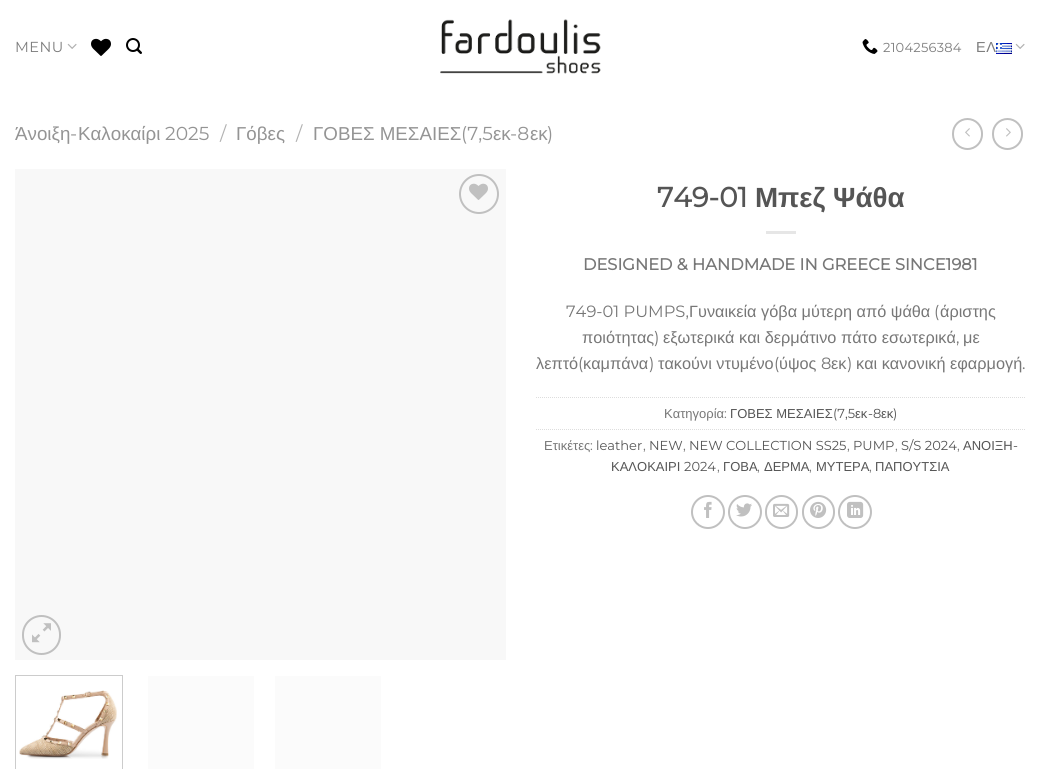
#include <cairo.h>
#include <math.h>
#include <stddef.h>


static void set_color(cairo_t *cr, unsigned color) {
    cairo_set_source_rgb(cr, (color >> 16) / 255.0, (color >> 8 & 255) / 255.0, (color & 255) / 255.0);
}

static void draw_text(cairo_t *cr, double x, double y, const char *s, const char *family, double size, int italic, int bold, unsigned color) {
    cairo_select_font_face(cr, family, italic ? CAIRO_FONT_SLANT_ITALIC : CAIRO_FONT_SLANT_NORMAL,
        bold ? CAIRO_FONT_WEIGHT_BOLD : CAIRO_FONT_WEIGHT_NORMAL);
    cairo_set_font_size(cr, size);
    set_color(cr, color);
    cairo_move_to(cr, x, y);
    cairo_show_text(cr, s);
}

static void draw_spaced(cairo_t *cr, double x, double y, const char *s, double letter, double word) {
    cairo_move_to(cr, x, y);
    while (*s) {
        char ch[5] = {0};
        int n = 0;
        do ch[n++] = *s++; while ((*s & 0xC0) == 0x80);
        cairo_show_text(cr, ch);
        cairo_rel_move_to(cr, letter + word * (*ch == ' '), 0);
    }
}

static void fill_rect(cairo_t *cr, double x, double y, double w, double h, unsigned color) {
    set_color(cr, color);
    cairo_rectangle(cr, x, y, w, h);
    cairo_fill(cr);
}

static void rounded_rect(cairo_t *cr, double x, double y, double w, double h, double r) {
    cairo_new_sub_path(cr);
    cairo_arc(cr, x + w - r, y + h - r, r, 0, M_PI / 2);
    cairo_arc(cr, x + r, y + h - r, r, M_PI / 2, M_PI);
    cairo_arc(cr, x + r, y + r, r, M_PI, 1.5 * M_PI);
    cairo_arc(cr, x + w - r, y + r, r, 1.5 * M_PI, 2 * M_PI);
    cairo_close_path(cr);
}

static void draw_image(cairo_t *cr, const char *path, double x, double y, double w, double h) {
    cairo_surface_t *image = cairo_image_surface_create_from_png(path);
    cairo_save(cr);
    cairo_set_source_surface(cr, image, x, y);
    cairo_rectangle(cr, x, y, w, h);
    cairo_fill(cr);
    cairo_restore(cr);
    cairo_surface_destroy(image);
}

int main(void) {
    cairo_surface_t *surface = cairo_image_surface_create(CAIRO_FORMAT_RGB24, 1041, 769);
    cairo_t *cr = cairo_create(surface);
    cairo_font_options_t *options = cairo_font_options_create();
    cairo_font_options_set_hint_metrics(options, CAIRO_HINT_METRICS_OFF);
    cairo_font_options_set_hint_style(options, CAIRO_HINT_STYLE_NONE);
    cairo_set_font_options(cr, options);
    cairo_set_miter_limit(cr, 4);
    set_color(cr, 0xFFFFFF);
    cairo_paint(cr);
    cairo_select_font_face(cr, "Montserrat Thin", CAIRO_FONT_SLANT_NORMAL, CAIRO_FONT_WEIGHT_NORMAL);
    cairo_set_font_size(cr, 14.5);
    set_color(cr, 0x7D7D7D);
    draw_spaced(cr, 15, 52, "MENU", 0.5, 0);
    draw_image(cr, "assets/img1.png", 67, 43, 10, 6);
    draw_image(cr, "assets/img2.png", 91, 38, 20, 18);
    draw_image(cr, "assets/img3.png", 126, 38, 16, 16);
    draw_image(cr, "assets/img4.png", 440, 19, 161, 55);
    draw_image(cr, "assets/img5.png", 862, 39, 16, 15);
    cairo_set_font_size(cr, 13);
    draw_spaced(cr, 883, 52, "2104256384", 0.25, 0);
    cairo_select_font_face(cr, "Liberation Sans", CAIRO_FONT_SLANT_NORMAL, CAIRO_FONT_WEIGHT_NORMAL);
    cairo_set_font_size(cr, 14.5);
    draw_spaced(cr, 976, 52, "ΕΛ", 0.5, 0);
    draw_image(cr, "assets/img6.png", 996, 43, 16, 11);
    draw_image(cr, "assets/img1.png", 1015, 43, 10, 6);
    draw_text(cr, 15, 140, "Άνοιξη", "Liberation Sans", 18.75, 0, 0, 0x949494);
    draw_text(cr, 70, 140, "-", "Montserrat Thin", 18.75, 0, 0, 0x949494);
    draw_text(cr, 78, 140, "Καλοκαίρι", "Liberation Sans", 18.75, 0, 0, 0x949494);
    draw_text(cr, 165, 140, "2025", "Montserrat Thin", 18.75, 0, 0, 0x949494);
    draw_text(cr, 220, 140, "/", "Montserrat Thin", 18.75, 0, 0, 0xB2B2B2);
    draw_text(cr, 236, 140, "Γόβες", "Liberation Sans", 18.75, 0, 0, 0x949494);
    draw_text(cr, 296, 140, "/", "Montserrat Thin", 18.75, 0, 0, 0xB2B2B2);
    draw_text(cr, 313, 140, "ΓΟΒΕΣ ΜΕΣΑΙΕΣ", "Liberation Sans", 18.75, 0, 0, 0x949494);
    draw_text(cr, 461, 140, "(7,5", "Montserrat Thin", 18.75, 0, 0, 0x949494);
    draw_text(cr, 493, 140, "εκ", "Liberation Sans", 18.75, 0, 0, 0x949494);
    draw_text(cr, 510, 140, "-8", "Montserrat Thin", 18.75, 0, 0, 0x949494);
    draw_text(cr, 530, 140, "εκ", "Liberation Sans", 18.75, 0, 0, 0x949494);
    draw_text(cr, 547, 140, ")", "Montserrat Thin", 18.75, 0, 0, 0x949494);
    rounded_rect(cr, 953, 119, 29, 30, 14.5);
    set_color(cr, 0xC0C0C0);
    cairo_stroke(cr);
    draw_image(cr, "assets/img7.png", 965, 128, 5, 9);
    rounded_rect(cr, 993, 119, 29, 30, 14.5);
    cairo_stroke(cr);
    draw_image(cr, "assets/img8.png", 1006, 128, 5, 9);
    fill_rect(cr, 15, 169, 491, 491, 0xF8F8F8);
    cairo_arc(cr, 479, 194, 19, 0, 2 * M_PI);
    set_color(cr, 0xC0C0C0);
    cairo_stroke(cr);
    draw_image(cr, "assets/img9.png", 469, 183, 19, 17);
    rounded_rect(cr, 23, 616, 37, 38, 18.5);
    cairo_stroke(cr);
    draw_image(cr, "assets/img10.png", 32, 623, 19, 20);
    cairo_rectangle(cr, 15.5, 675.5, 107, 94);
    set_color(cr, 0xCCCCCC);
    cairo_set_line_width(cr, 1);
    cairo_stroke(cr);
    draw_image(cr, "assets/img11.png", 19, 690, 98, 69);
    fill_rect(cr, 148, 676, 106, 93, 0xFBFBFB);
    fill_rect(cr, 275, 676, 106, 93, 0xFBFBFB);
    draw_text(cr, 657, 207, "749-01", "Montserrat", 27.75, 0, 1, 0x555555);
    draw_text(cr, 755, 207, "Μπεζ Ψάθα", "Liberation Sans", 27.75, 0, 1, 0x555555);
    fill_rect(cr, 766, 231, 30, 3, 0xE6E6E6);
    draw_text(cr, 583, 270, "DESIGNED & HANDMADE IN GREECE SINCE1981", "Montserrat", 16.3, 0, 1, 0x777777);
    draw_text(cr, 566, 317, "749-01 PUMPS,", "Montserrat Thin", 16.3, 0, 0, 0x777777);
    draw_text(cr, 689, 317, "Γυναικεία γόβα μύτερη από ψάθα", "Liberation Sans", 16.3, 0, 0, 0x777777);
    draw_text(cr, 934, 317, "(", "Montserrat Thin", 16.3, 0, 0, 0x777777);
    draw_text(cr, 940, 317, "άριστης", "Liberation Sans", 16.3, 0, 0, 0x777777);
    draw_text(cr, 582, 343, "ποιότητας", "Liberation Sans", 16.3, 0, 0, 0x777777);
    draw_text(cr, 654, 343, ")", "Montserrat Thin", 16.3, 0, 0, 0x777777);
    draw_text(cr, 663, 343, "εξωτερικά και δερμάτινο πάτο εσωτερικά", "Liberation Sans", 16.3, 0, 0, 0x777777);
    draw_text(cr, 956, 343, ",", "Montserrat Thin", 16.3, 0, 0, 0x777777);
    draw_text(cr, 963, 343, "με", "Liberation Sans", 16.3, 0, 0, 0x777777);
    draw_text(cr, 536, 369, "λεπτό", "Liberation Sans", 16.3, 0, 0, 0x777777);
    draw_text(cr, 578, 369, "(", "Montserrat Thin", 16.3, 0, 0, 0x777777);
    draw_text(cr, 583, 369, "καμπάνα", "Liberation Sans", 16.3, 0, 0, 0x777777);
    draw_text(cr, 649, 369, ")", "Montserrat Thin", 16.3, 0, 0, 0x777777);
    draw_text(cr, 658, 369, "τακούνι ντυμένο", "Liberation Sans", 16.3, 0, 0, 0x777777);
    draw_text(cr, 774, 369, "(", "Montserrat Thin", 16.3, 0, 0, 0x777777);
    draw_text(cr, 779, 369, "ύψος", "Liberation Sans", 16.3, 0, 0, 0x777777);
    draw_text(cr, 821, 369, "8", "Montserrat Thin", 16.3, 0, 0, 0x777777);
    draw_text(cr, 831, 369, "εκ", "Liberation Sans", 16.3, 0, 0, 0x777777);
    draw_text(cr, 847, 369, ")", "Montserrat Thin", 16.3, 0, 0, 0x777777);
    draw_text(cr, 856, 369, "και κανονική εφαρμογή", "Liberation Sans", 16.3, 0, 0, 0x777777);
    draw_text(cr, 1022, 369, ".", "Montserrat Thin", 16.3, 0, 0, 0x777777);
    cairo_new_path(cr);
    cairo_move_to(cr, 536, 397.5);
    cairo_line_to(cr, 1026, 397.5);
    set_color(cr, 0xDDDDDD);
    cairo_set_dash(cr, (double[]){1, 1}, 2, 0);
    cairo_stroke(cr);
    draw_text(cr, 664, 418, "Κατηγορία", "Liberation Sans", 13, 0, 0, 0x777777);
    draw_text(cr, 724, 418, ":", "Montserrat Thin", 13, 0, 0, 0x777777);
    draw_text(cr, 730, 418, "ΓΟΒΕΣ ΜΕΣΑΙΕΣ", "Liberation Sans", 13, 0, 0, 0x555555);
    draw_text(cr, 833, 418, "(7,5", "Montserrat Thin", 13, 0, 0, 0x555555);
    draw_text(cr, 855, 418, "εκ", "Liberation Sans", 13, 0, 0, 0x555555);
    draw_text(cr, 868, 418, "-8", "Montserrat Thin", 13, 0, 0, 0x555555);
    draw_text(cr, 881, 418, "εκ", "Liberation Sans", 13, 0, 0, 0x555555);
    draw_text(cr, 893, 418, ")", "Montserrat Thin", 13, 0, 0, 0x555555);
    cairo_new_path(cr);
    cairo_move_to(cr, 536, 429.5);
    cairo_line_to(cr, 1026, 429.5);
    set_color(cr, 0xDDDDDD);
    cairo_stroke(cr);
    draw_text(cr, 544, 450, "Ετικέτες", "Liberation Sans", 13, 0, 0, 0x777777);
    draw_text(cr, 590, 450, ":", "Montserrat Thin", 13, 0, 0, 0x777777);
    draw_text(cr, 596, 450, "leather", "Montserrat Thin", 13, 0, 0, 0x555555);
    draw_text(cr, 649, 450, "NEW", "Montserrat Thin", 13, 0, 0, 0x555555);
    draw_text(cr, 689, 450, "NEW COLLECTION SS25", "Montserrat Thin", 13, 0, 0, 0x555555);
    draw_text(cr, 853, 450, "PUMP", "Montserrat Thin", 13, 0, 0, 0x555555);
    draw_text(cr, 901, 450, "S/S 2024", "Montserrat Thin", 13, 0, 0, 0x555555);
    draw_text(cr, 963, 450, "ΑΝΟΙΞΗ", "Liberation Sans", 13, 0, 0, 0x555555);
    draw_text(cr, 1013, 450, "-", "Montserrat Thin", 13, 0, 0, 0x555555);
    draw_text(cr, 643, 450, ",", "Montserrat Thin", 13, 0, 0, 0x777777);
    draw_text(cr, 683, 450, ",", "Montserrat Thin", 13, 0, 0, 0x777777);
    draw_text(cr, 847, 450, ",", "Montserrat Thin", 13, 0, 0, 0x777777);
    draw_text(cr, 895, 450, ",", "Montserrat Thin", 13, 0, 0, 0x777777);
    draw_text(cr, 957, 450, ",", "Montserrat Thin", 13, 0, 0, 0x777777);
    draw_text(cr, 611, 471, "ΚΑΛΟΚΑΙΡΙ", "Liberation Sans", 13, 0, 0, 0x555555);
    draw_text(cr, 684, 471, "2024", "Montserrat Thin", 13, 0, 0, 0x555555);
    draw_text(cr, 717, 471, ",", "Montserrat Thin", 13, 0, 0, 0x777777);
    draw_text(cr, 723, 471, "ΓΟΒΑ", "Liberation Sans", 13, 0, 0, 0x555555);
    draw_text(cr, 757, 471, ",", "Montserrat Thin", 13, 0, 0, 0x777777);
    draw_text(cr, 764, 471, "ΔΕΡΜΑ", "Liberation Sans", 13, 0, 0, 0x555555);
    draw_text(cr, 809, 471, ",", "Montserrat Thin", 13, 0, 0, 0x777777);
    draw_text(cr, 816, 471, "ΜΥΤΕΡΑ", "Liberation Sans", 13, 0, 0, 0x555555);
    draw_text(cr, 869, 471, ",", "Montserrat Thin", 13, 0, 0, 0x777777);
    draw_text(cr, 875, 471, "ΠΑΠΟΥΤΣΙΑ", "Liberation Sans", 13, 0, 0, 0x555555);
    cairo_new_path(cr);
    cairo_arc(cr, 708, 512, 16, 0, 2 * M_PI);
    set_color(cr, 0xC0C0C0);
    cairo_set_line_width(cr, 2);
    cairo_set_dash(cr, NULL, 0, 0);
    cairo_stroke(cr);
    draw_image(cr, "assets/img12.png", 704, 501, 8, 17);
    cairo_arc(cr, 745, 512, 16, 0, 2 * M_PI);
    cairo_stroke(cr);
    draw_image(cr, "assets/img13.png", 736, 503, 16, 14);
    rounded_rect(cr, 766, 496, 31, 32, 15.5);
    cairo_stroke(cr);
    draw_image(cr, "assets/img14.png", 773, 503, 17, 14);
    rounded_rect(cr, 803, 496, 31, 32, 15.5);
    cairo_stroke(cr);
    draw_image(cr, "assets/img15.png", 810, 501, 17, 17);
    cairo_arc(cr, 855, 512, 16, 0, 2 * M_PI);
    cairo_stroke(cr);
    draw_image(cr, "assets/img16.png", 847, 501, 17, 17);
    cairo_surface_write_to_png(surface, "output.png");
    cairo_font_options_destroy(options);
    cairo_destroy(cr);
    cairo_surface_destroy(surface);
    return 0;
}
